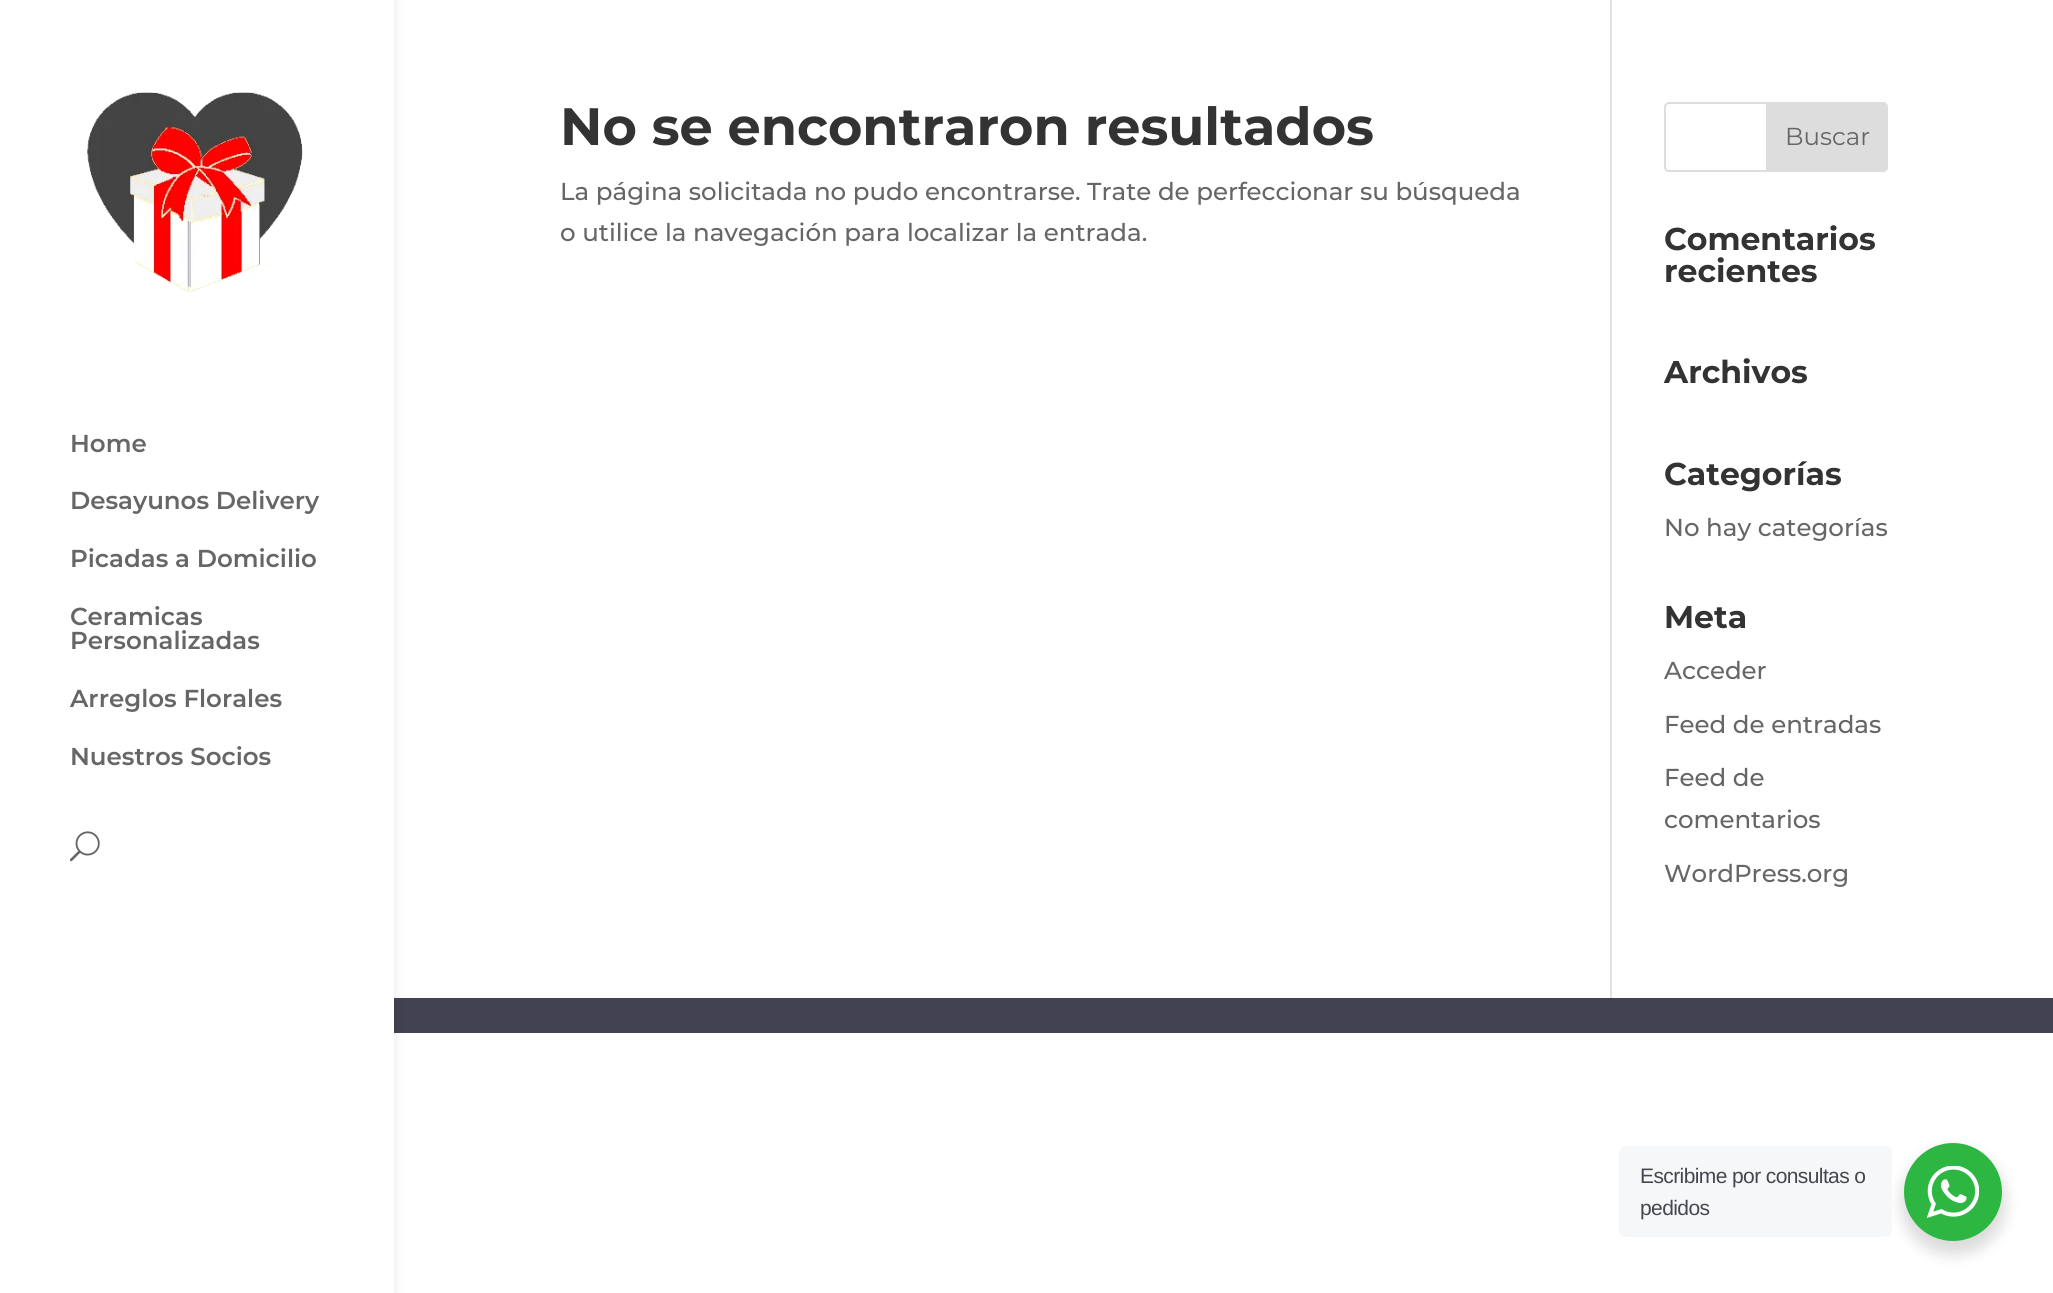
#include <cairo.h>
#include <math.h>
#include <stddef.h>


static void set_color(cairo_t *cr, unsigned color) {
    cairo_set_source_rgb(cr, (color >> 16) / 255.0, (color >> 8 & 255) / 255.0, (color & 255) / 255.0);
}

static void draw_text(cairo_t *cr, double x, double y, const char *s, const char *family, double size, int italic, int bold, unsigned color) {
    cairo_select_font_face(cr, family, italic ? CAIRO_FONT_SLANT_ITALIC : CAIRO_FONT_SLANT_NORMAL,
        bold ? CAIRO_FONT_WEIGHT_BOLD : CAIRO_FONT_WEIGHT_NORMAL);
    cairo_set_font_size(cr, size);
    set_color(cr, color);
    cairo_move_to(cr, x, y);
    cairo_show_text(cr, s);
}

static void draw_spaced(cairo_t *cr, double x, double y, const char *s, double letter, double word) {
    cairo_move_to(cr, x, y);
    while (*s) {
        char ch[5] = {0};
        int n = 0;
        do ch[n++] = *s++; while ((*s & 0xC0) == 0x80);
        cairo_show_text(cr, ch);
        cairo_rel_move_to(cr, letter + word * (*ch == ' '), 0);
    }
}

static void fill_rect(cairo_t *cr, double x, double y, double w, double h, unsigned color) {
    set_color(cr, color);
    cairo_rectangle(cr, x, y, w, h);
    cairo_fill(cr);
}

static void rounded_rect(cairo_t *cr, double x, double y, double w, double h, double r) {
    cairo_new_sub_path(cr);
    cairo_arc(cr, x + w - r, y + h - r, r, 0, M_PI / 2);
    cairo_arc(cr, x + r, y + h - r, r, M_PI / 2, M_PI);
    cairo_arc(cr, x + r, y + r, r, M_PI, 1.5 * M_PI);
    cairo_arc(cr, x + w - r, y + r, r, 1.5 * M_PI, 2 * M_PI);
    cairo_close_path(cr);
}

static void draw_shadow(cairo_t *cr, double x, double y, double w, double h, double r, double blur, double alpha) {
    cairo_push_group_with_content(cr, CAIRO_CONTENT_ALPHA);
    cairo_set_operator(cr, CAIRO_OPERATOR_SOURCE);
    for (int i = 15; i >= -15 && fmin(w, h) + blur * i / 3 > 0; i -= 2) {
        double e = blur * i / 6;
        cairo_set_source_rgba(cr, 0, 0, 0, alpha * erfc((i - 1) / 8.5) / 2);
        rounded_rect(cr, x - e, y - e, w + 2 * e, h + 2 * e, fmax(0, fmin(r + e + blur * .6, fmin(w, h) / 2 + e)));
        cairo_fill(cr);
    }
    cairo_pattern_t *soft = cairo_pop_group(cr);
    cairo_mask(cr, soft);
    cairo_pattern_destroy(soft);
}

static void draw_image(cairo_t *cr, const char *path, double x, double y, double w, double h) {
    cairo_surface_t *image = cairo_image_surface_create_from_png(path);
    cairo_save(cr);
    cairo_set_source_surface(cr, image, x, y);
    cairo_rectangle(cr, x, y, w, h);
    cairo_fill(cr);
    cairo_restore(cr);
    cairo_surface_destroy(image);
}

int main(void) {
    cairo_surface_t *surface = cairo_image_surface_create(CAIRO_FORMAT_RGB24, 2053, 1293);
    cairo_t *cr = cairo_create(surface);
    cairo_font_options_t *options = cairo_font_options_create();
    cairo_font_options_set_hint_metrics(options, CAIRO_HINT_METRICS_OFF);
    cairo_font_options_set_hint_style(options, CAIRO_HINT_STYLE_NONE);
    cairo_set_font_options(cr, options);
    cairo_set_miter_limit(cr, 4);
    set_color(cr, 0xFFFFFF);
    cairo_paint(cr);
    fill_rect(cr, 394, 998, 1659, 35, 0x424251);
    set_color(cr, 0x000000);
    draw_shadow(cr, 0, 0, 394, 1293, 0, 6, 0.1);
    fill_rect(cr, 0, 0, 394, 1293, 0xFFFFFF);
    draw_image(cr, "assets/img1.png", 87, 92, 216, 200);
    draw_text(cr, 70, 452, "Home", "Montserrat SemiBold", 24.5, 0, 0, 0x666666);
    draw_text(cr, 70, 509, "Desayunos Delivery", "Montserrat SemiBold", 24.5, 0, 0, 0x666666);
    draw_text(cr, 70, 567, "Picadas a Domicilio", "Montserrat SemiBold", 24.5, 0, 0, 0x666666);
    draw_text(cr, 70, 625, "Ceramicas", "Montserrat SemiBold", 24.5, 0, 0, 0x666666);
    draw_text(cr, 70, 649, "Personalizadas", "Montserrat SemiBold", 24.5, 0, 0, 0x666666);
    draw_text(cr, 70, 707, "Arreglos Florales", "Montserrat SemiBold", 24.5, 0, 0, 0x666666);
    draw_text(cr, 70, 765, "Nuestros Socios", "Montserrat SemiBold", 24.5, 0, 0, 0x666666);
    draw_image(cr, "assets/img2.png", 69, 831, 31, 31);
    fill_rect(cr, 1610, 0, 2, 998, 0xE2E2E2);
    draw_text(cr, 560, 145, "No se encontraron resultados", "Montserrat", 52.5, 0, 1, 0x333333);
    draw_text(cr, 560, 200, "La página solicitada no pudo encontrarse. Trate de perfeccionar su búsqueda", "Montserrat Medium", 24.5, 0, 0, 0x666666);
    draw_text(cr, 560, 241, "o utilice la navegación para localizar la entrada.", "Montserrat Medium", 24.5, 0, 0, 0x666666);
    rounded_rect(cr, 1665, 103, 222, 68, 4);
    set_color(cr, 0xDDDDDD);
    cairo_stroke(cr);
    cairo_new_path(cr);
    cairo_move_to(cr, 1767, 103);
    cairo_line_to(cr, 1883, 103);
    cairo_curve_to(cr, 1885, 103, 1887, 105, 1887, 107);
    cairo_line_to(cr, 1887, 167);
    cairo_curve_to(cr, 1887, 169, 1885, 171, 1883, 171);
    cairo_line_to(cr, 1767, 171);
    cairo_close_path(cr);
    cairo_fill_preserve(cr);
    cairo_stroke(cr);
    draw_text(cr, 1785, 145, "Buscar", "Montserrat", 24.5, 0, 0, 0x666666);
    draw_text(cr, 1664, 250, "Comentarios", "Montserrat", 31.5, 0, 1, 0x333333);
    draw_text(cr, 1664, 282, "recientes", "Montserrat", 31.5, 0, 1, 0x333333);
    draw_text(cr, 1664, 383, "Archivos", "Montserrat", 31.5, 0, 1, 0x333333);
    draw_text(cr, 1664, 485, "Categorías", "Montserrat", 31.5, 0, 1, 0x333333);
    draw_text(cr, 1664, 536, "No hay categorías", "Montserrat Medium", 24.5, 0, 0, 0x666666);
    draw_text(cr, 1664, 628, "Meta", "Montserrat", 31.5, 0, 1, 0x333333);
    draw_text(cr, 1664, 679, "Acceder", "Montserrat Medium", 24.5, 0, 0, 0x666666);
    draw_text(cr, 1664, 733, "Feed de entradas", "Montserrat Medium", 24.5, 0, 0, 0x666666);
    draw_text(cr, 1664, 786, "Feed de", "Montserrat Medium", 24.5, 0, 0, 0x666666);
    draw_text(cr, 1664, 828, "comentarios", "Montserrat Medium", 24.5, 0, 0, 0x666666);
    draw_text(cr, 1664, 882, "WordPress.org", "Montserrat Medium", 24.5, 0, 0, 0x666666);
    set_color(cr, 0x000000);
    draw_shadow(cr, 1901, 1150, 105, 105, 52.5, 7, 0.14);
    set_color(cr, 0xF5F7F9);
    rounded_rect(cr, 1619, 1146, 273, 91, 7);
    cairo_fill(cr);
    cairo_select_font_face(cr, "Liberation Sans", CAIRO_FONT_SLANT_NORMAL, CAIRO_FONT_WEIGHT_NORMAL);
    cairo_set_font_size(cr, 21);
    set_color(cr, 0x43474E);
    draw_spaced(cr, 1640, 1183, "Escribime por consultas o", -0.6, 0);
    draw_spaced(cr, 1640, 1215, "pedidos", -0.6, 0);
    set_color(cr, 0x2DB742);
    cairo_new_path(cr);
    cairo_arc(cr, 1953, 1192, 49, 0, 2 * M_PI);
    cairo_fill(cr);
    draw_image(cr, "assets/img3.png", 1927, 1166, 52, 52);
    cairo_surface_write_to_png(surface, "output.png");
    cairo_font_options_destroy(options);
    cairo_destroy(cr);
    cairo_surface_destroy(surface);
    return 0;
}
